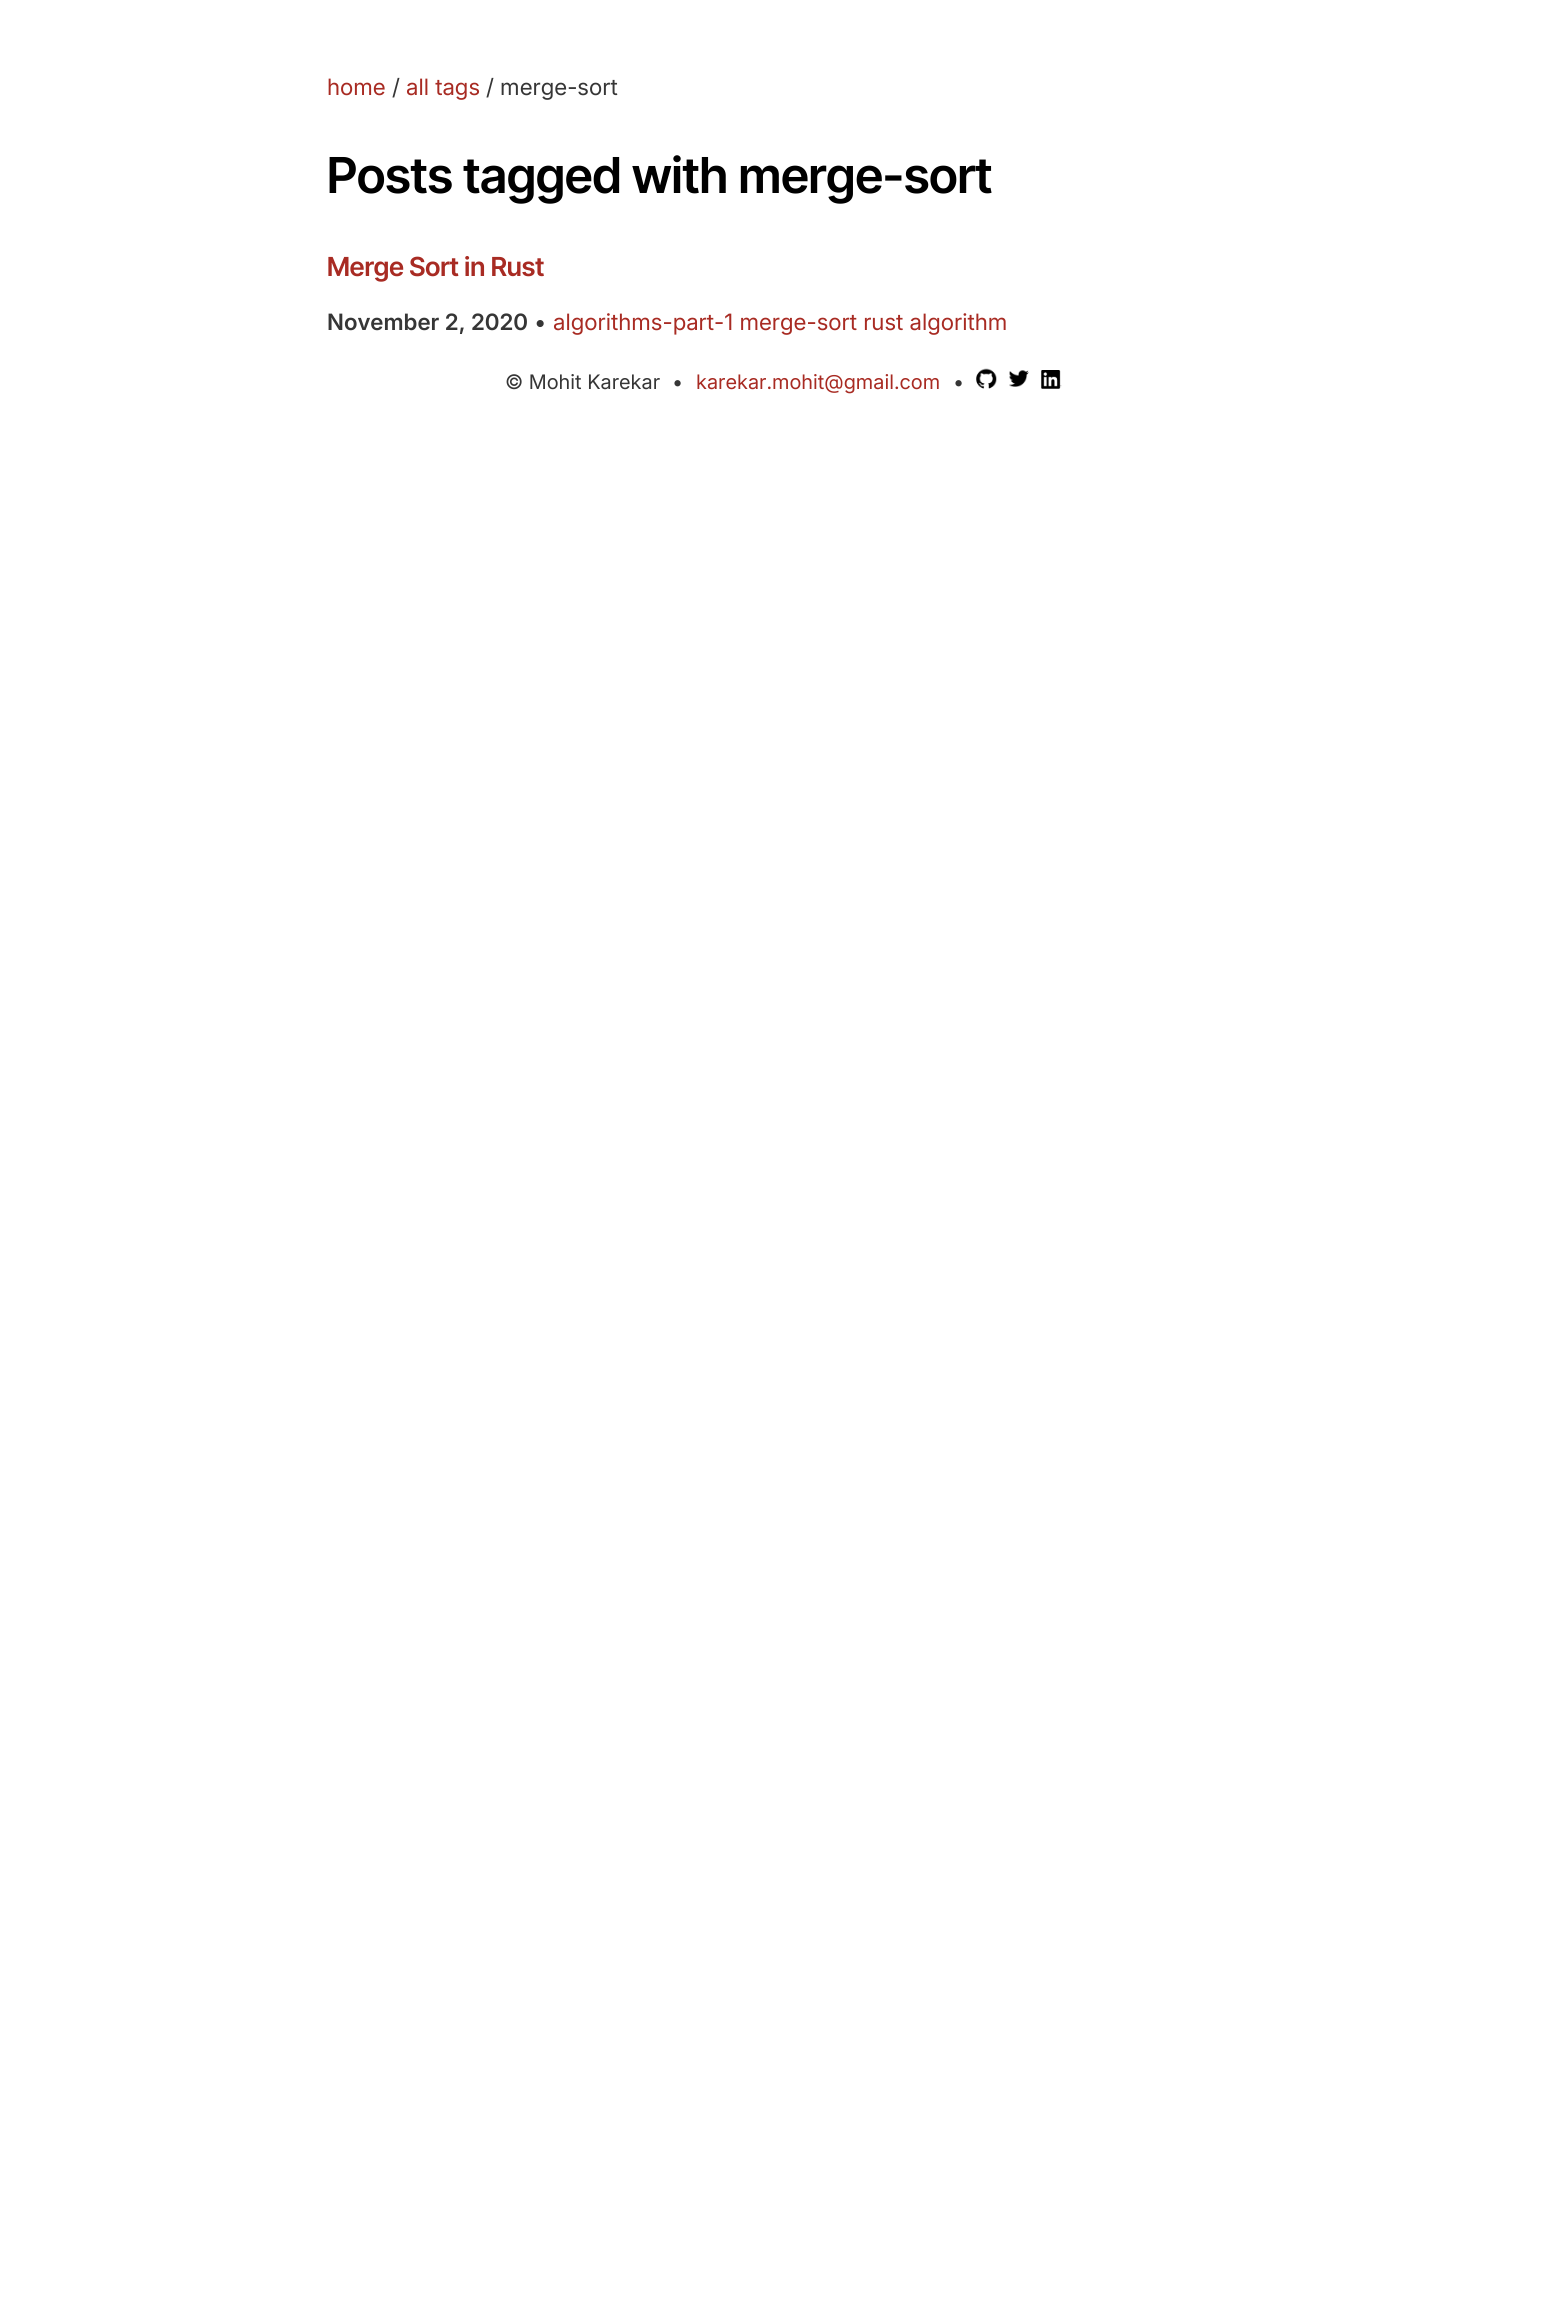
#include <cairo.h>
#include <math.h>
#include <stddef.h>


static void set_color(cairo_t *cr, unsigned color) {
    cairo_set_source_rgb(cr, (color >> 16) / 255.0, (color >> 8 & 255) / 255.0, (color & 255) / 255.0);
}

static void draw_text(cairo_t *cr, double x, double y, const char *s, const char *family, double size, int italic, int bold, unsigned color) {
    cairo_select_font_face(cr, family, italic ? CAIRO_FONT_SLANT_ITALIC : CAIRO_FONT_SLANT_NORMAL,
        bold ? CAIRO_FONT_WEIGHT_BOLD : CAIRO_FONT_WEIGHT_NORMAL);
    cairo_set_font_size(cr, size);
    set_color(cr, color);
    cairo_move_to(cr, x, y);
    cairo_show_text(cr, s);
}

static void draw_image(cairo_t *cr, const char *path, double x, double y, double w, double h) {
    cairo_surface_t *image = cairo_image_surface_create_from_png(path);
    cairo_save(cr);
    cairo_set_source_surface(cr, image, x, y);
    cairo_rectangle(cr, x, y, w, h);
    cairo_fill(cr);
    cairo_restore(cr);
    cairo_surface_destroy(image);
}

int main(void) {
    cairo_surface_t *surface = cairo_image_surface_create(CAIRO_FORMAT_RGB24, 1566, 2300);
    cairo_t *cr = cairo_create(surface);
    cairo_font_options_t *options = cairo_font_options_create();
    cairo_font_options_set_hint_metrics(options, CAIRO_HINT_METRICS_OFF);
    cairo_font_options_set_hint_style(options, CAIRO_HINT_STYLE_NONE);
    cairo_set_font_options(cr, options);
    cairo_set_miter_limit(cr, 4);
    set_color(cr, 0xFFFFFF);
    cairo_paint(cr);
    draw_text(cr, 327, 95, "home", "Inter", 22.5, 0, 0, 0xA82B23);
    draw_text(cr, 392, 95, "/", "Inter", 22.5, 0, 0, 0x363636);
    draw_text(cr, 406, 95, "all tags", "Inter", 22.5, 0, 0, 0xA82B23);
    draw_text(cr, 486, 95, "/ merge-sort", "Inter", 22.5, 0, 0, 0x363636);
    draw_text(cr, 327, 193, "Posts tagged with merge-sort", "Inter Tight SemiBold", 49.5, 0, 0, 0x000000);
    draw_text(cr, 327, 276, "Merge Sort in Rust", "Inter Tight SemiBold", 26.25, 0, 0, 0xA82B23);
    draw_text(cr, 327, 330, "November 2, 2020", "Inter SemiBold", 22.5, 0, 0, 0x363636);
    draw_text(cr, 534, 330, "•", "Inter", 22.5, 0, 0, 0x363636);
    draw_text(cr, 553, 330, "algorithms-part-1 merge-sort rust algorithm", "Inter", 22.5, 0, 0, 0xA82B23);
    draw_text(cr, 505, 389, "© Mohit Karekar", "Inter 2", 20, 0, 0, 0x363636);
    draw_text(cr, 672, 389, "•", "Inter 2", 20, 0, 0, 0x363636);
    draw_text(cr, 696, 389, "karekar.mohit@gmail.com", "Inter 2", 20, 0, 0, 0xA82B23);
    draw_text(cr, 953, 389, "•", "Inter 2", 20, 0, 0, 0x363636);
    draw_image(cr, "assets/img1.png", 976, 368, 21, 21);
    draw_image(cr, "assets/img2.png", 1009, 370, 20, 17);
    draw_image(cr, "assets/img3.png", 1041, 370, 21, 19);
    cairo_surface_write_to_png(surface, "output.png");
    cairo_font_options_destroy(options);
    cairo_destroy(cr);
    cairo_surface_destroy(surface);
    return 0;
}
